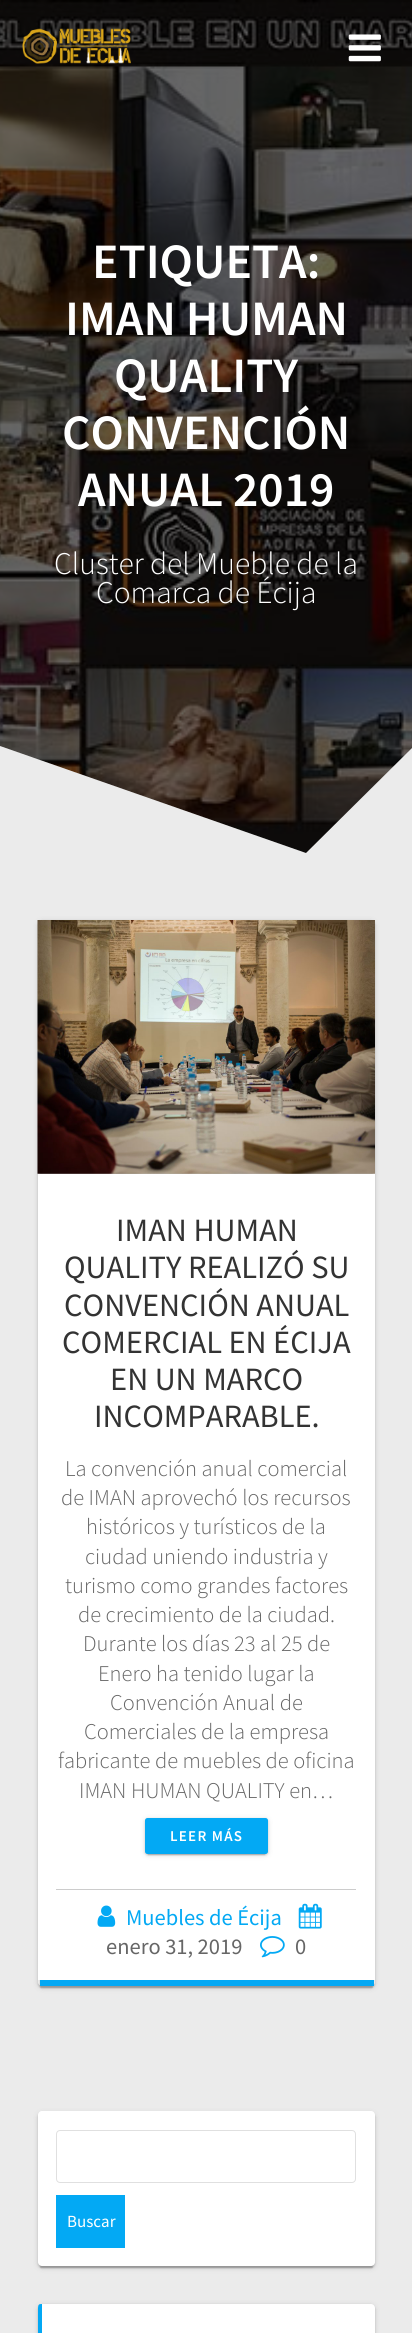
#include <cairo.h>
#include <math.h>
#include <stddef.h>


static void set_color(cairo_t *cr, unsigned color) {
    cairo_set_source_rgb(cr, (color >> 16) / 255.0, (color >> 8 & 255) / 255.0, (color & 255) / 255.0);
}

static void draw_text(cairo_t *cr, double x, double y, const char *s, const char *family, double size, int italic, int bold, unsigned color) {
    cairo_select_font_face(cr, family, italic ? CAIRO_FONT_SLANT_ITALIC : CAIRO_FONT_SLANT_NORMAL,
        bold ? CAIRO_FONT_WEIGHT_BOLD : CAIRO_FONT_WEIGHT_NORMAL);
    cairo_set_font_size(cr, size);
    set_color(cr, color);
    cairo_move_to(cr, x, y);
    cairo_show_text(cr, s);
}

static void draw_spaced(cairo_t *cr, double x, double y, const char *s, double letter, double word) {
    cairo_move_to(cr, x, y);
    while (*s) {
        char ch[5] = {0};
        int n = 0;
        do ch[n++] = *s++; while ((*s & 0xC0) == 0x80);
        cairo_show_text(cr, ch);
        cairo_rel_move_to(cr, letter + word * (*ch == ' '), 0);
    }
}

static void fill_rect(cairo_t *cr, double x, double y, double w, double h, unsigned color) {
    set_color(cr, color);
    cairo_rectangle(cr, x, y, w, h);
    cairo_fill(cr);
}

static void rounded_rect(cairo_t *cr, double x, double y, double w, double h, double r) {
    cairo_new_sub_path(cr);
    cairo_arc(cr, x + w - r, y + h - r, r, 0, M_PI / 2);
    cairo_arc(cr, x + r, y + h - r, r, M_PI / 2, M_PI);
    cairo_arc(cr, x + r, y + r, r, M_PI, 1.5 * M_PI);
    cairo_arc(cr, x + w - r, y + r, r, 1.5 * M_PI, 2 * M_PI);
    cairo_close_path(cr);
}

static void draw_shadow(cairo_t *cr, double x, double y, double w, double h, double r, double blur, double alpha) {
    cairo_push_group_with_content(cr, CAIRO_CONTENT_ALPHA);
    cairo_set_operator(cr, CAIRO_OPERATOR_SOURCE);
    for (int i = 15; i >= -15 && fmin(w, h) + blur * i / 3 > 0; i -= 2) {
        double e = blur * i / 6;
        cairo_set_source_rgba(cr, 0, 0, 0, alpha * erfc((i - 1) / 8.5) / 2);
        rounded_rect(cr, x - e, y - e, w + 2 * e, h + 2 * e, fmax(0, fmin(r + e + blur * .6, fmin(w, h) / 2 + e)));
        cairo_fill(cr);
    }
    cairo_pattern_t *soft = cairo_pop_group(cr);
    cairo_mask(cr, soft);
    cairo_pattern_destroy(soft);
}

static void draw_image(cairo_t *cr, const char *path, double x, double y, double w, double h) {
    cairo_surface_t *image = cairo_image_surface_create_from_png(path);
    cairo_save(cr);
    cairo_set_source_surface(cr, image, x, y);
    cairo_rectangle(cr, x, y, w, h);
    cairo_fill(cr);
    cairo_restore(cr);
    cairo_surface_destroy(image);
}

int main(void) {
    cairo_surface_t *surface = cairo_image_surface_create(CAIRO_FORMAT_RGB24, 412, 2333);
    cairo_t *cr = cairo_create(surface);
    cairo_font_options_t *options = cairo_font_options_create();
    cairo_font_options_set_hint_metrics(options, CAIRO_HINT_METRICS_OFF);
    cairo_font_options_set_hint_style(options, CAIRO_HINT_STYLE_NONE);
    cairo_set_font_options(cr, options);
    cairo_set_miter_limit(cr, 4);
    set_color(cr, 0xEBEBEB);
    cairo_paint(cr);
    draw_image(cr, "assets/img3.png", 0, 0, 412, 853);
    cairo_set_source_rgba(cr, 0, 0, 0, 0.6);
    cairo_rectangle(cr, 0, 0, 412, 853);
    cairo_fill(cr);
    draw_image(cr, "assets/img1.png", 22, 28, 109, 36);
    draw_image(cr, "assets/img2.png", 348, 34, 33, 28);
    draw_text(cr, 92, 278, "ETIQUETA:", "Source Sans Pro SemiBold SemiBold", 49.5, 0, 0, 0xFFFFFF);
    draw_text(cr, 65, 335, "IMAN HUMAN", "Source Sans Pro SemiBold SemiBold", 49.5, 0, 0, 0xFFFFFF);
    draw_text(cr, 114, 392, "QUALITY", "Source Sans Pro SemiBold SemiBold", 49.5, 0, 0, 0xFFFFFF);
    draw_text(cr, 62, 449, "CONVENCIÓN", "Source Sans Pro SemiBold SemiBold", 49.5, 0, 0, 0xFFFFFF);
    draw_text(cr, 78, 506, "ANUAL 2019", "Source Sans Pro SemiBold SemiBold", 49.5, 0, 0, 0xFFFFFF);
    draw_text(cr, 54, 574, "Cluster del Mueble de la", "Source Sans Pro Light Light", 31.5, 0, 0, 0xFFFFFF);
    draw_text(cr, 96, 603, "Comarca de Écija", "Source Sans Pro Light Light", 31.5, 0, 0, 0xFFFFFF);
    set_color(cr, 0xEBEBEB);
    cairo_new_path(cr);
    cairo_move_to(cr, 306, 853);
    cairo_line_to(cr, 0, 746);
    cairo_line_to(cr, 0, 859);
    cairo_line_to(cr, 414, 859);
    cairo_line_to(cr, 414, 746);
    cairo_close_path(cr);
    cairo_fill(cr);
    cairo_save(cr);
    cairo_set_fill_rule(cr, CAIRO_FILL_RULE_EVEN_ODD);
    cairo_new_path(cr);
    cairo_move_to(cr, 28, 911);
    cairo_line_to(cr, 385, 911);
    cairo_line_to(cr, 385, 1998);
    cairo_line_to(cr, 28, 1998);
    cairo_close_path(cr);
    cairo_move_to(cr, 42, 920);
    cairo_line_to(cr, 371, 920);
    cairo_curve_to(cr, 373, 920, 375, 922, 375, 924);
    cairo_line_to(cr, 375, 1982);
    cairo_curve_to(cr, 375, 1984, 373, 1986, 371, 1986);
    cairo_line_to(cr, 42, 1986);
    cairo_curve_to(cr, 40, 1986, 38, 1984, 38, 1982);
    cairo_line_to(cr, 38, 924);
    cairo_curve_to(cr, 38, 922, 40, 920, 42, 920);
    cairo_close_path(cr);
    cairo_clip(cr);
    set_color(cr, 0x000000);
    draw_shadow(cr, 38, 921, 337, 1067, 4, 3, 0.12);
    cairo_restore(cr);
    set_color(cr, 0x000000);
    draw_shadow(cr, 40, 926, 333, 1062, 1, 0.5, 0.2);
    cairo_save(cr);
    cairo_set_fill_rule(cr, CAIRO_FILL_RULE_EVEN_ODD);
    cairo_new_path(cr);
    cairo_move_to(cr, 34, 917);
    cairo_line_to(cr, 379, 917);
    cairo_line_to(cr, 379, 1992);
    cairo_line_to(cr, 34, 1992);
    cairo_close_path(cr);
    cairo_move_to(cr, 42, 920);
    cairo_line_to(cr, 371, 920);
    cairo_curve_to(cr, 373, 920, 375, 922, 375, 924);
    cairo_line_to(cr, 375, 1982);
    cairo_curve_to(cr, 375, 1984, 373, 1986, 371, 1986);
    cairo_line_to(cr, 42, 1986);
    cairo_curve_to(cr, 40, 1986, 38, 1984, 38, 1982);
    cairo_line_to(cr, 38, 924);
    cairo_curve_to(cr, 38, 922, 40, 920, 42, 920);
    cairo_close_path(cr);
    cairo_clip(cr);
    draw_shadow(cr, 38, 921, 337, 1067, 4, 1, 0.14);
    cairo_restore(cr);
    fill_rect(cr, 40, 1980, 334, 6, 0x03A8F4);
    draw_image(cr, "assets/img4.png", 37, 920, 338, 254);
    fill_rect(cr, 38, 1174, 337, 806, 0xFFFFFF);
    draw_text(cr, 116, 1241, "IMAN HUMAN", "Source Sans Pro", 32.5, 0, 0, 0x333333);
    draw_text(cr, 64, 1278, "QUALITY REALIZÓ SU", "Source Sans Pro", 32.5, 0, 0, 0x333333);
    draw_text(cr, 64, 1316, "CONVENCIÓN ANUAL", "Source Sans Pro", 32.5, 0, 0, 0x333333);
    draw_text(cr, 62, 1353, "COMERCIAL EN ÉCIJA", "Source Sans Pro", 32.5, 0, 0, 0x333333);
    draw_text(cr, 110, 1390, "EN UN MARCO", "Source Sans Pro", 32.5, 0, 0, 0x333333);
    draw_text(cr, 94, 1427, "INCOMPARABLE.", "Source Sans Pro", 32.5, 0, 0, 0x333333);
    draw_text(cr, 65, 1476, "La convención anual comercial", "Source Sans Pro Light Light", 22.5, 0, 0, 0x666666);
    draw_text(cr, 61, 1505, "de IMAN aprovechó los recursos", "Source Sans Pro Light Light", 22.5, 0, 0, 0x666666);
    draw_text(cr, 86, 1534, "históricos y turísticos de la", "Source Sans Pro Light Light", 22.5, 0, 0, 0x666666);
    draw_text(cr, 85, 1564, "ciudad uniendo industria y", "Source Sans Pro Light Light", 22.5, 0, 0, 0x666666);
    draw_text(cr, 65, 1593, "turismo como grandes factores", "Source Sans Pro Light Light", 22.5, 0, 0, 0x666666);
    draw_text(cr, 78, 1622, "de crecimiento de la ciudad.", "Source Sans Pro Light Light", 22.5, 0, 0, 0x666666);
    draw_text(cr, 83, 1651, "Durante los días 23 al 25 de", "Source Sans Pro Light Light", 22.5, 0, 0, 0x666666);
    draw_text(cr, 98, 1681, "Enero ha tenido lugar la", "Source Sans Pro Light Light", 22.5, 0, 0, 0x666666);
    draw_text(cr, 110, 1710, "Convención Anual de", "Source Sans Pro Light Light", 22.5, 0, 0, 0x666666);
    draw_text(cr, 84, 1739, "Comerciales de la empresa", "Source Sans Pro Light Light", 22.5, 0, 0, 0x666666);
    draw_text(cr, 58, 1768, "fabricante de muebles de oficina", "Source Sans Pro Light Light", 22.5, 0, 0, 0x666666);
    draw_text(cr, 79, 1798, "IMAN HUMAN QUALITY en…", "Source Sans Pro Light Light", 22.5, 0, 0, 0x666666);
    set_color(cr, 0x000000);
    draw_shadow(cr, 145, 1819, 123, 36, 2.5, 3, 0.12);
    draw_shadow(cr, 148, 1824, 117, 31, 0, 0.5, 0.2);
    draw_shadow(cr, 145, 1819, 123, 36, 2.5, 1, 0.14);
    set_color(cr, 0x03A9F4);
    rounded_rect(cr, 145, 1818, 123, 36, 2.5);
    cairo_fill(cr);
    cairo_select_font_face(cr, "Source Sans Pro SemiBold SemiBold", CAIRO_FONT_SLANT_NORMAL, CAIRO_FONT_WEIGHT_NORMAL);
    cairo_set_font_size(cr, 15);
    set_color(cr, 0xFFFFFF);
    draw_spaced(cr, 170, 1841, "LEER MÁS", 1.25, 0);
    fill_rect(cr, 56, 1889, 300, 1, 0xCCCCCC);
    draw_image(cr, "assets/img5.png", 97, 1905, 19, 22);
    draw_text(cr, 126, 1925, "Muebles de Écija", "Source Sans Pro", 22.5, 0, 0, 0x03A9F4);
    draw_image(cr, "assets/img6.png", 298, 1903, 24, 26);
    draw_text(cr, 106, 1954, "enero 31, 2019", "Source Sans Pro", 22.5, 0, 0, 0x666666);
    draw_image(cr, "assets/img7.png", 260, 1936, 25, 22);
    draw_text(cr, 295, 1954, "0", "Source Sans Pro", 22.5, 0, 0, 0x666666);
    set_color(cr, 0x000000);
    draw_shadow(cr, 38, 2113, 337, 155, 4, 3, 0.12);
    draw_shadow(cr, 40, 2118, 333, 150, 1, 0.5, 0.2);
    draw_shadow(cr, 38, 2113, 337, 155, 4, 1, 0.14);
    set_color(cr, 0xFFFFFF);
    rounded_rect(cr, 38, 2111, 337, 155, 4);
    cairo_fill(cr);
    rounded_rect(cr, 56.5, 2130.5, 299, 52, 3.5);
    set_color(cr, 0xE0E0E0);
    cairo_set_line_width(cr, 1);
    cairo_stroke(cr);
    fill_rect(cr, 56, 2195, 69, 53, 0x03A9F4);
    draw_text(cr, 67, 2227, "Buscar", "Source Sans Pro", 17, 0, 0, 0xFFFFFF);
    set_color(cr, 0x000000);
    draw_shadow(cr, 38, 2305, 337, 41, 4, 3, 0.12);
    draw_shadow(cr, 38, 2305, 337, 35, 4, 1, 0.14);
    set_color(cr, 0xFFFFFF);
    rounded_rect(cr, 38, 2304, 337, 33, 4);
    cairo_fill(cr);
    set_color(cr, 0x03A8F4);
    cairo_new_path(cr);
    cairo_move_to(cr, 41, 2304);
    cairo_line_to(cr, 42, 2304);
    cairo_line_to(cr, 42, 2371);
    cairo_line_to(cr, 44, 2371);
    cairo_line_to(cr, 40, 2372);
    cairo_curve_to(cr, 39, 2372, 38, 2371, 38, 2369);
    cairo_line_to(cr, 38, 2308);
    cairo_curve_to(cr, 38, 2305, 39, 2304, 41, 2304);
    cairo_close_path(cr);
    cairo_fill(cr);
    cairo_surface_write_to_png(surface, "output.png");
    cairo_font_options_destroy(options);
    cairo_destroy(cr);
    cairo_surface_destroy(surface);
    return 0;
}
